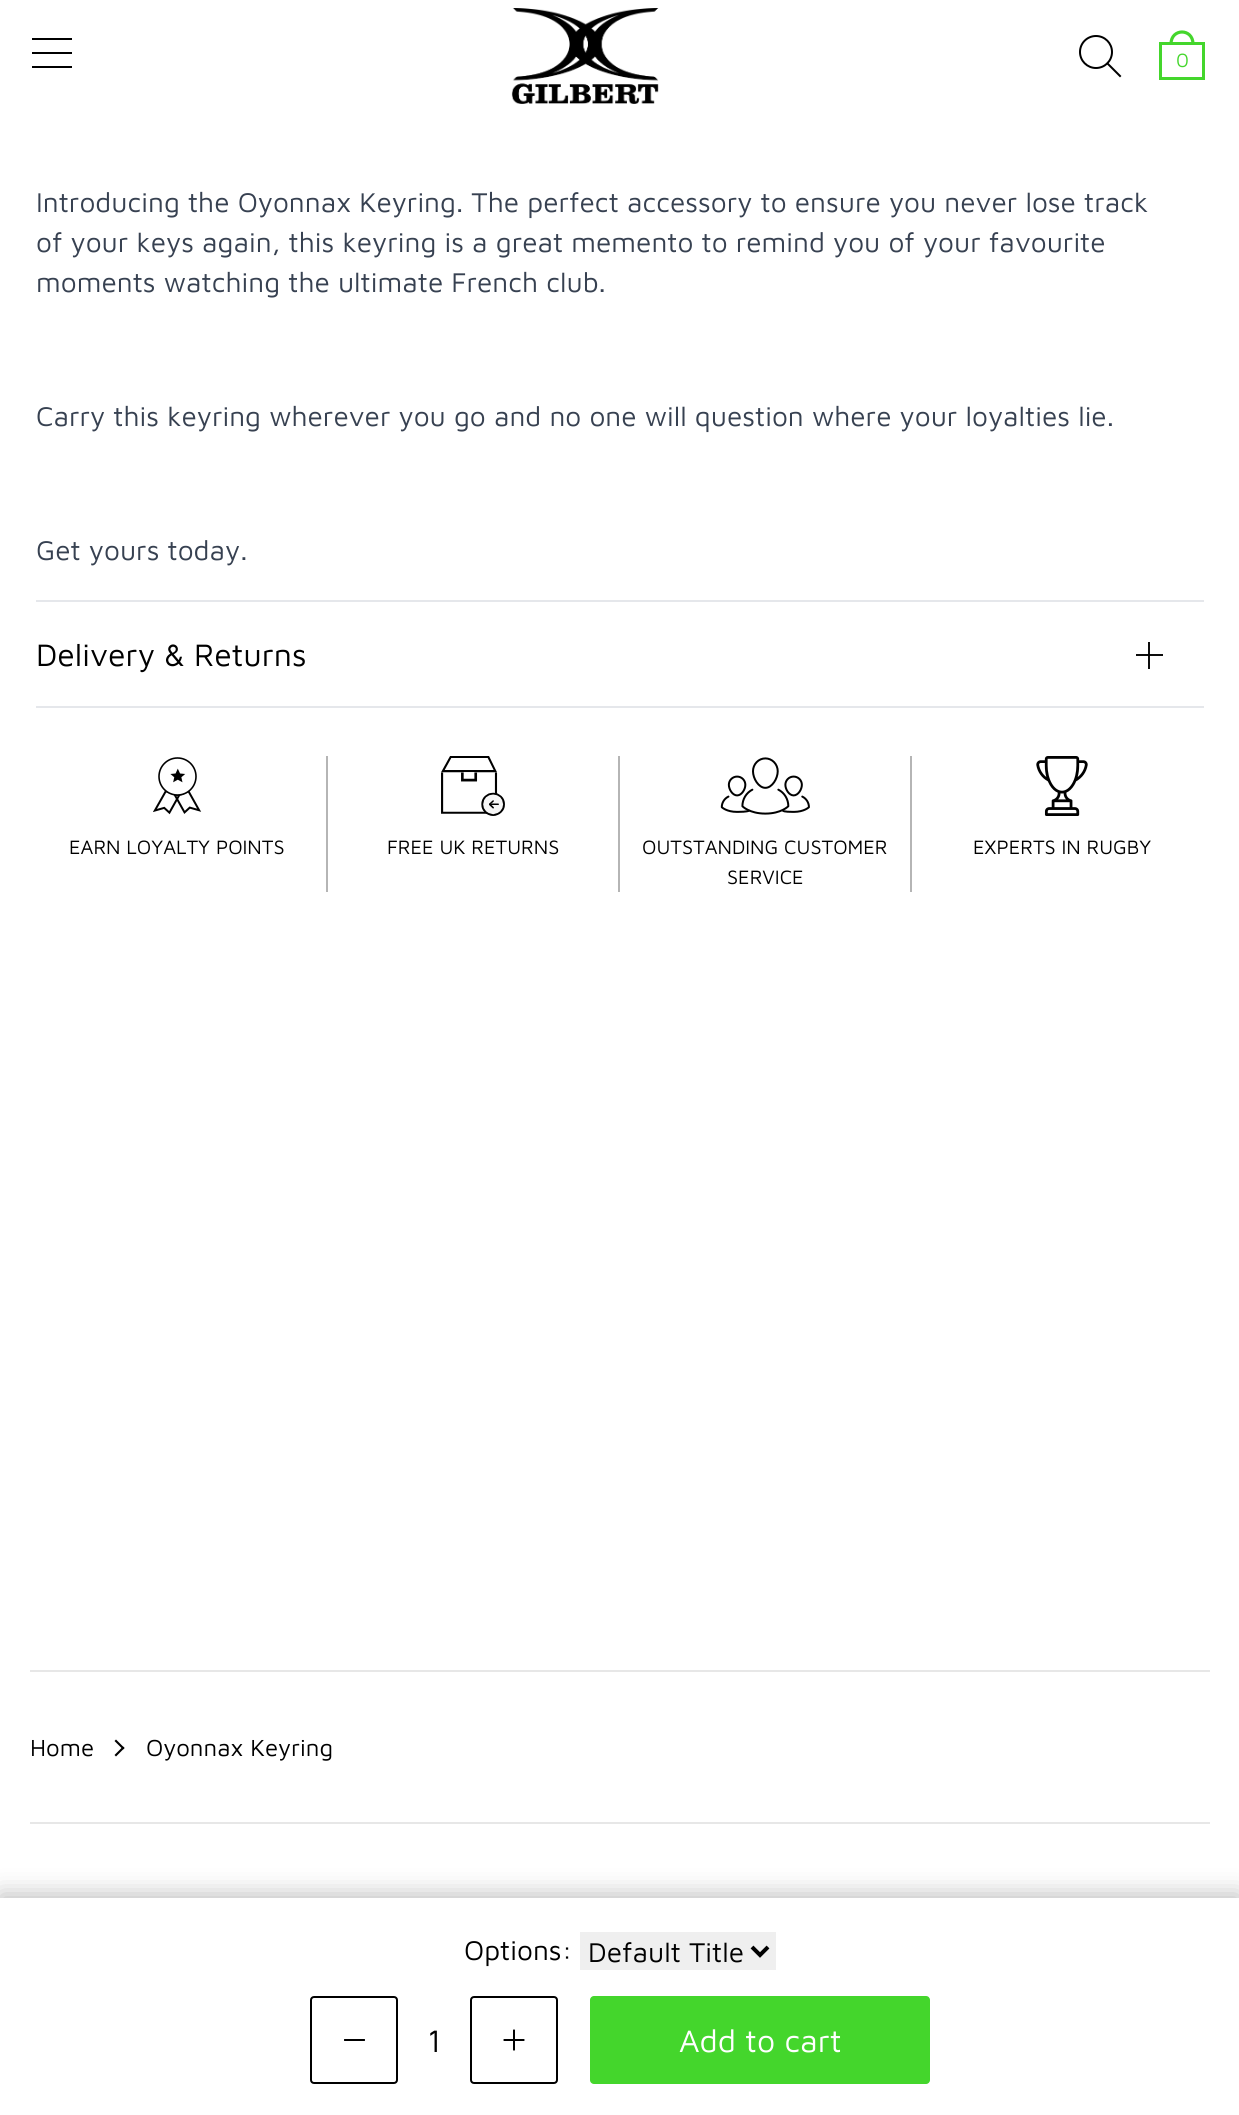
#include <cairo.h>
#include <math.h>
#include <stddef.h>


static void set_color(cairo_t *cr, unsigned color) {
    cairo_set_source_rgb(cr, (color >> 16) / 255.0, (color >> 8 & 255) / 255.0, (color & 255) / 255.0);
}

static void draw_text(cairo_t *cr, double x, double y, const char *s, const char *family, double size, int italic, int bold, unsigned color) {
    cairo_select_font_face(cr, family, italic ? CAIRO_FONT_SLANT_ITALIC : CAIRO_FONT_SLANT_NORMAL,
        bold ? CAIRO_FONT_WEIGHT_BOLD : CAIRO_FONT_WEIGHT_NORMAL);
    cairo_set_font_size(cr, size);
    set_color(cr, color);
    cairo_move_to(cr, x, y);
    cairo_show_text(cr, s);
}

static void fill_rect(cairo_t *cr, double x, double y, double w, double h, unsigned color) {
    set_color(cr, color);
    cairo_rectangle(cr, x, y, w, h);
    cairo_fill(cr);
}

static void rounded_rect(cairo_t *cr, double x, double y, double w, double h, double r) {
    cairo_new_sub_path(cr);
    cairo_arc(cr, x + w - r, y + h - r, r, 0, M_PI / 2);
    cairo_arc(cr, x + r, y + h - r, r, M_PI / 2, M_PI);
    cairo_arc(cr, x + r, y + r, r, M_PI, 1.5 * M_PI);
    cairo_arc(cr, x + w - r, y + r, r, 1.5 * M_PI, 2 * M_PI);
    cairo_close_path(cr);
}

static void draw_shadow(cairo_t *cr, double x, double y, double w, double h, double r, double blur, double alpha) {
    cairo_push_group_with_content(cr, CAIRO_CONTENT_ALPHA);
    cairo_set_operator(cr, CAIRO_OPERATOR_SOURCE);
    for (int i = 15; i >= -15 && fmin(w, h) + blur * i / 3 > 0; i -= 2) {
        double e = blur * i / 6;
        cairo_set_source_rgba(cr, 0, 0, 0, alpha * erfc((i - 1) / 8.5) / 2);
        rounded_rect(cr, x - e, y - e, w + 2 * e, h + 2 * e, fmax(0, fmin(r + e + blur * .6, fmin(w, h) / 2 + e)));
        cairo_fill(cr);
    }
    cairo_pattern_t *soft = cairo_pop_group(cr);
    cairo_mask(cr, soft);
    cairo_pattern_destroy(soft);
}

static void draw_image(cairo_t *cr, const char *path, double x, double y, double w, double h) {
    cairo_surface_t *image = cairo_image_surface_create_from_png(path);
    cairo_save(cr);
    cairo_set_source_surface(cr, image, x, y);
    cairo_rectangle(cr, x, y, w, h);
    cairo_fill(cr);
    cairo_restore(cr);
    cairo_surface_destroy(image);
}

int main(void) {
    cairo_surface_t *surface = cairo_image_surface_create(CAIRO_FORMAT_RGB24, 1239, 2115);
    cairo_t *cr = cairo_create(surface);
    cairo_font_options_t *options = cairo_font_options_create();
    cairo_font_options_set_hint_metrics(options, CAIRO_HINT_METRICS_OFF);
    cairo_font_options_set_hint_style(options, CAIRO_HINT_STYLE_NONE);
    cairo_set_font_options(cr, options);
    cairo_set_miter_limit(cr, 4);
    set_color(cr, 0xFFFFFF);
    cairo_paint(cr);
    fill_rect(cr, 1136, 654, 27, 2, 0x0D0D0D);
    fill_rect(cr, 32, 38, 40, 2, 0x000000);
    fill_rect(cr, 32, 52, 40, 2, 0x000000);
    fill_rect(cr, 32, 66, 40, 2, 0x000000);
    draw_image(cr, "assets/img1.png", 511, 8, 148, 96);
    cairo_new_path(cr);
    cairo_move_to(cr, 1120, 76);
    cairo_line_to(cr, 1107.5, 63.5);
    cairo_set_line_cap(cr, CAIRO_LINE_CAP_SQUARE);
    cairo_stroke(cr);
    cairo_arc(cr, 1096, 52, 16, 0, 2 * M_PI);
    cairo_set_line_cap(cr, CAIRO_LINE_CAP_BUTT);
    cairo_stroke(cr);
    cairo_new_path(cr);
    cairo_move_to(cr, 1171, 44);
    cairo_curve_to(cr, 1171, 28, 1193, 28, 1193, 44);
    set_color(cr, 0x44D62C);
    cairo_set_line_width(cr, 3.2);
    cairo_stroke(cr);
    cairo_rectangle(cr, 1160.5, 43.5, 43, 35);
    cairo_set_line_width(cr, 3);
    cairo_stroke(cr);
    draw_text(cr, 1176, 67, "0", "Maven Pro", 20, 0, 0, 0x44D62C);
    fill_rect(cr, 36, 600, 1168, 2, 0xE5E7EB);
    draw_text(cr, 36, 212, "Introducing the Oyonnax Keyring. The perfect accessory to ensure you never lose track", "Maven Pro", 28, 0, 0, 0x374151);
    draw_text(cr, 36, 252, "of your keys again, this keyring is a great memento to remind you of your favourite", "Maven Pro", 28, 0, 0, 0x374151);
    draw_text(cr, 36, 292, "moments watching the ultimate French club.", "Maven Pro", 28, 0, 0, 0x374151);
    draw_text(cr, 36, 426, "Carry this keyring wherever you go and no one will question where your loyalties lie.", "Maven Pro", 28, 0, 0, 0x374151);
    draw_text(cr, 36, 560, "Get yours today.", "Maven Pro", 28, 0, 0, 0x374151);
    fill_rect(cr, 36, 706, 1168, 2, 0xE5E7EB);
    draw_text(cr, 36, 666, "Delivery & Returns", "Maven Pro", 32, 0, 0, 0x000000);
    fill_rect(cr, 1148, 642, 2, 27, 0x0D0D0D);
    fill_rect(cr, 1148, 654, 2, 2, 0x010101);
    fill_rect(cr, 326, 756, 2, 136, 0xB5B5B5);
    draw_image(cr, "assets/img2.png", 153, 757, 49, 58);
    draw_text(cr, 69, 854, "EARN LOYALTY POINTS", "Maven Pro", 20, 0, 0, 0x000000);
    fill_rect(cr, 618, 756, 2, 136, 0xB5B5B5);
    draw_image(cr, "assets/img3.png", 441, 756, 64, 60);
    draw_text(cr, 387, 854, "FREE UK RETURNS", "Maven Pro", 20, 0, 0, 0x000000);
    fill_rect(cr, 910, 756, 2, 136, 0xB5B5B5);
    draw_image(cr, "assets/img4.png", 720, 757, 90, 58);
    draw_text(cr, 642, 854, "OUTSTANDING CUSTOMER", "Maven Pro", 20, 0, 0, 0x000000);
    draw_text(cr, 727, 884, "SERVICE", "Maven Pro", 20, 0, 0, 0x000000);
    draw_image(cr, "assets/img5.png", 1036, 756, 52, 60);
    draw_text(cr, 973, 854, "EXPERTS IN RUGBY", "Maven Pro", 20, 0, 0, 0x000000);
    set_color(cr, 0x000000);
    draw_shadow(cr, 0, 1894, 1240, 218, 0, 12, 0.25);
    fill_rect(cr, 0, 1898, 1239, 217, 0xFFFFFF);
    draw_text(cr, 464, 1960, "Options:", "Maven Pro", 28, 0, 0, 0x000000);
    fill_rect(cr, 580, 1932, 196, 38, 0xEFEFEF);
    cairo_new_path(cr);
    cairo_move_to(cr, 752, 1947);
    cairo_line_to(cr, 760, 1955);
    cairo_line_to(cr, 768, 1947);
    set_color(cr, 0x000000);
    cairo_set_line_width(cr, 4);
    cairo_stroke(cr);
    draw_text(cr, 588, 1962, "Default Title", "Maven Pro", 28, 0, 0, 0x000000);
    rounded_rect(cr, 311, 1997, 86, 86, 3);
    cairo_set_line_width(cr, 2);
    cairo_stroke(cr);
    rounded_rect(cr, 344, 2039, 21, 2, 0.5);
    cairo_fill(cr);
    draw_text(cr, 427, 2052, "1", "Maven Pro", 32, 0, 0, 0x000000);
    rounded_rect(cr, 471, 1997, 86, 86, 3);
    cairo_stroke(cr);
    draw_image(cr, "assets/img6.png", 503, 2029, 22, 22);
    set_color(cr, 0x44D62C);
    rounded_rect(cr, 590, 1996, 340, 88, 4);
    cairo_fill(cr);
    draw_text(cr, 679, 2052, "Add to cart", "Maven Pro", 32, 0, 0, 0xFFFFFF);
    fill_rect(cr, 30, 1670, 1180, 2, 0xE7E7E7);
    draw_text(cr, 30, 1756, "Home", "Maven Pro", 24, 0, 0, 0x000000);
    cairo_new_path(cr);
    cairo_move_to(cr, 116, 1739.5);
    cairo_line_to(cr, 124.5, 1748);
    cairo_line_to(cr, 123, 1749.5);
    cairo_line_to(cr, 114.5, 1741);
    cairo_close_path(cr);
    cairo_fill(cr);
    cairo_new_path(cr);
    cairo_move_to(cr, 123, 1746.5);
    cairo_line_to(cr, 124.5, 1748);
    cairo_line_to(cr, 116, 1756.5);
    cairo_line_to(cr, 114.5, 1755);
    cairo_close_path(cr);
    cairo_fill(cr);
    draw_text(cr, 146, 1756, "Oyonnax Keyring", "Maven Pro", 24, 0, 0, 0x000000);
    fill_rect(cr, 30, 1822, 1180, 2, 0xE7E7E7);
    cairo_surface_write_to_png(surface, "output.png");
    cairo_font_options_destroy(options);
    cairo_destroy(cr);
    cairo_surface_destroy(surface);
    return 0;
}
